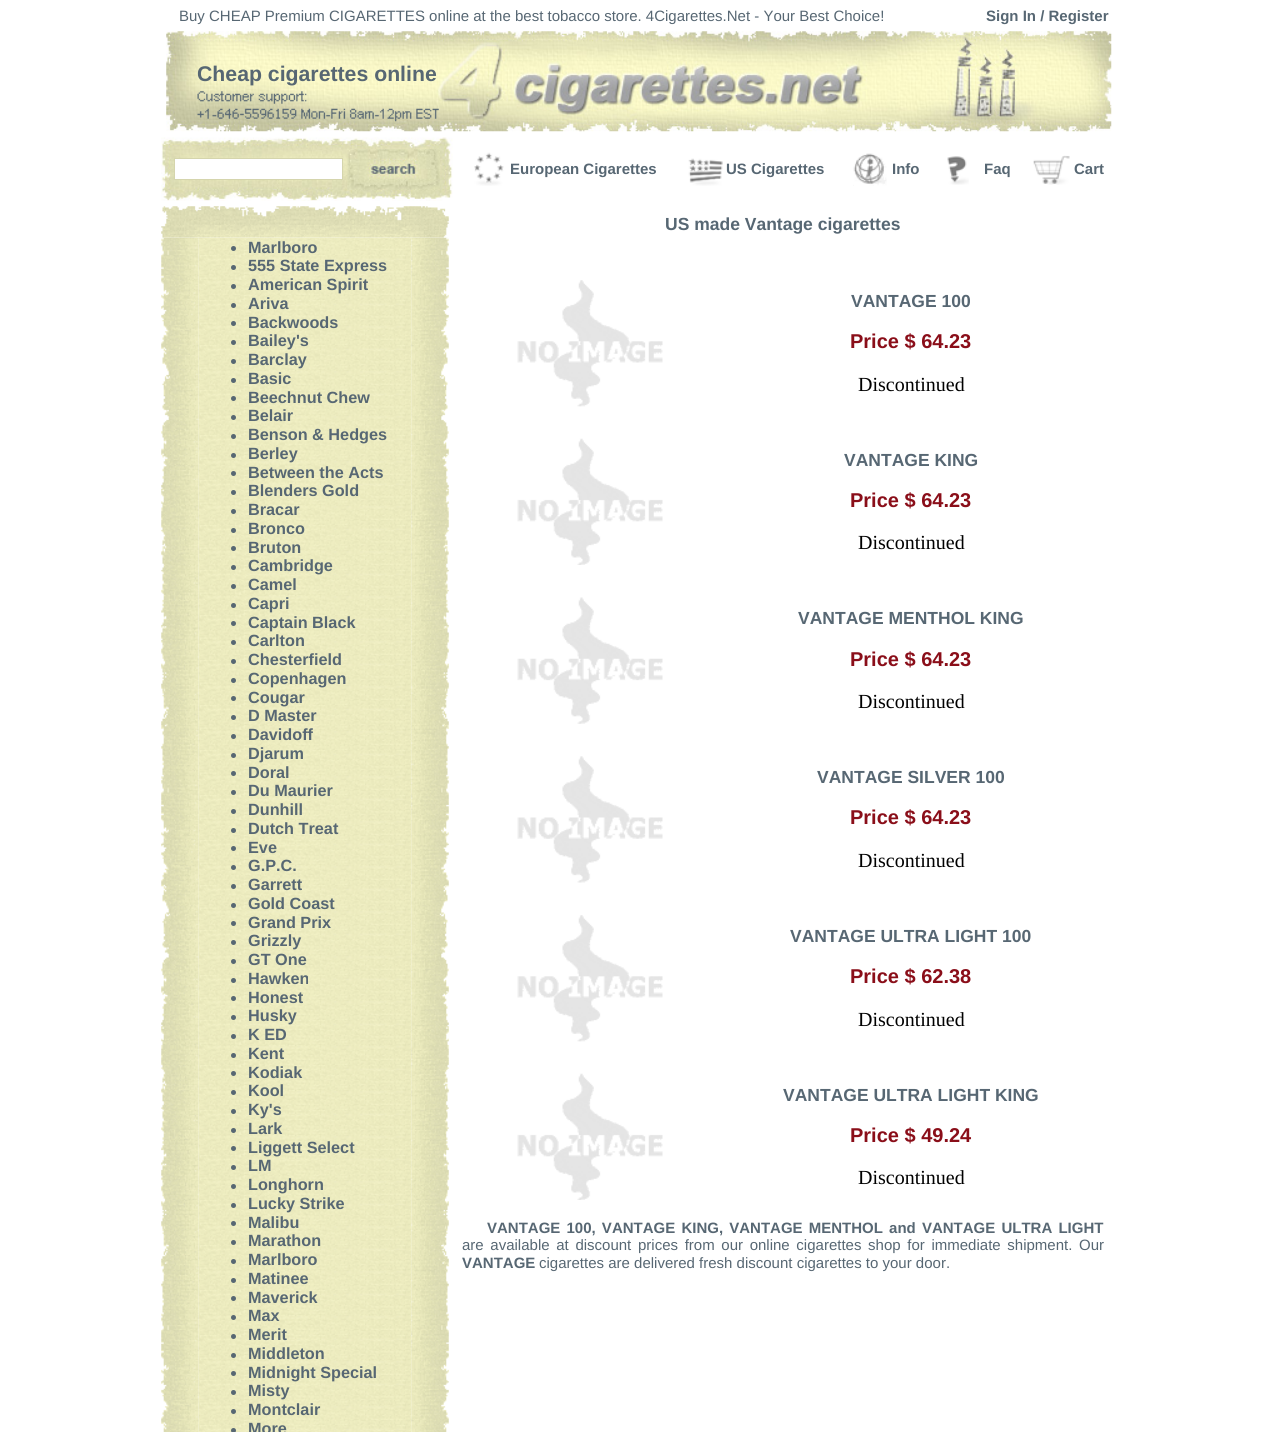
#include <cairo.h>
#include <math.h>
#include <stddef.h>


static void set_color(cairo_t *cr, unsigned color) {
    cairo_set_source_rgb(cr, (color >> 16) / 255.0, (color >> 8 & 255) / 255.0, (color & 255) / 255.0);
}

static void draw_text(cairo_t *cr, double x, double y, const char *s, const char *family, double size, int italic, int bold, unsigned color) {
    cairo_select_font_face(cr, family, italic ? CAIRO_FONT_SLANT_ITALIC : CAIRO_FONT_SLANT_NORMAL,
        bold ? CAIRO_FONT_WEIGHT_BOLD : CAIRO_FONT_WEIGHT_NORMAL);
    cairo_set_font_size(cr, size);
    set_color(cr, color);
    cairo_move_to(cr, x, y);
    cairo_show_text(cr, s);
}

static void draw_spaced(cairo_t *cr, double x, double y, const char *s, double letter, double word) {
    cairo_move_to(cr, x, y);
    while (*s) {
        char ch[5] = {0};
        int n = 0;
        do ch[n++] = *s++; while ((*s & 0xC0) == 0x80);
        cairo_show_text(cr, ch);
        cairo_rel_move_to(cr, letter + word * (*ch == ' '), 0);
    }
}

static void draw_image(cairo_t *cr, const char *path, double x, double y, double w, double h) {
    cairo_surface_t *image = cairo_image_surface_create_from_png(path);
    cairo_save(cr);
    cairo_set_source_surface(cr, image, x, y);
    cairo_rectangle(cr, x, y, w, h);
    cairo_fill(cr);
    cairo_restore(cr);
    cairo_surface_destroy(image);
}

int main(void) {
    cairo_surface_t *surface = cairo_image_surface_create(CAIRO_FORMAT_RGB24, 1277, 1432);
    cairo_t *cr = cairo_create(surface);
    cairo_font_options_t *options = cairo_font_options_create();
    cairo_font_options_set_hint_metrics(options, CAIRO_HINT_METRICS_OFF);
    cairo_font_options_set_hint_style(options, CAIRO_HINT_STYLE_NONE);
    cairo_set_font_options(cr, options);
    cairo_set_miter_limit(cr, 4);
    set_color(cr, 0xFFFFFF);
    cairo_paint(cr);
    draw_text(cr, 179, 21, "Buy CHEAP Premium CIGARETTES online at the best tobacco store. 4Cigarettes.Net - Your Best Choice!", "Liberation Sans", 15, 0, 0, 0x576773);
    draw_text(cr, 986, 21, "Sign In / Register", "Liberation Sans", 15, 0, 1, 0x576773);
    draw_image(cr, "assets/img1.png", 166, 31, 946, 101);
    draw_text(cr, 197, 81, "Cheap cigarettes online", "Liberation Sans", 21.25, 0, 1, 0x576773);
    draw_image(cr, "assets/img2.png", 197, 91, 242, 31);
    draw_image(cr, "assets/img3.png", 161, 137, 292, 64);
    set_color(cr, 0xFFFFFF);
    cairo_rectangle(cr, 174.5, 158.5, 168, 21);
    cairo_fill_preserve(cr);
    set_color(cr, 0xD5D5AD);
    cairo_set_line_width(cr, 1);
    cairo_stroke(cr);
    draw_image(cr, "assets/img4.png", 347, 149, 93, 41);
    draw_image(cr, "assets/img5.png", 474, 152, 30, 34);
    draw_text(cr, 510, 174, "European Cigarettes", "Liberation Sans", 15, 0, 1, 0x576773);
    draw_image(cr, "assets/img6.png", 688, 158, 35, 28);
    draw_text(cr, 726, 174, "US Cigarettes", "Liberation Sans", 15, 0, 1, 0x576773);
    draw_image(cr, "assets/img7.png", 853, 153, 34, 33);
    draw_text(cr, 892, 174, "Info", "Liberation Sans", 15, 0, 1, 0x576773);
    draw_image(cr, "assets/img8.png", 947, 156, 22, 29);
    draw_text(cr, 984, 174, "Faq", "Liberation Sans", 15, 0, 1, 0x576773);
    draw_image(cr, "assets/img9.png", 1033, 155, 37, 30);
    draw_text(cr, 1074, 174, "Cart", "Liberation Sans", 15, 0, 1, 0x576773);
    draw_image(cr, "assets/img11.png", 161, 237, 38, 1195);
    draw_image(cr, "assets/img12.png", 198, 237, 214, 1195);
    draw_image(cr, "assets/img13.png", 411, 237, 38, 1195);
    draw_image(cr, "assets/img10.png", 161, 206, 288, 32);
    cairo_arc(cr, 233.5, 248.5, 2.5, 0, 2 * M_PI);
    cairo_fill(cr);
    draw_text(cr, 248, 253, "Marlboro", "Liberation Sans", 16.25, 0, 1, 0x576773);
    cairo_new_path(cr);
    cairo_arc(cr, 233.5, 267.5, 2.5, 0, 2 * M_PI);
    cairo_fill(cr);
    draw_text(cr, 248, 271, "555 State Express", "Liberation Sans", 16.25, 0, 1, 0x576773);
    cairo_new_path(cr);
    cairo_arc(cr, 233.5, 286.5, 2.5, 0, 2 * M_PI);
    cairo_fill(cr);
    draw_text(cr, 248, 290, "American Spirit", "Liberation Sans", 16.25, 0, 1, 0x576773);
    cairo_new_path(cr);
    cairo_arc(cr, 233.5, 305.5, 2.5, 0, 2 * M_PI);
    cairo_fill(cr);
    draw_text(cr, 248, 309, "Ariva", "Liberation Sans", 16.25, 0, 1, 0x576773);
    cairo_new_path(cr);
    cairo_arc(cr, 233.5, 323.5, 2.5, 0, 2 * M_PI);
    cairo_fill(cr);
    draw_text(cr, 248, 328, "Backwoods", "Liberation Sans", 16.25, 0, 1, 0x576773);
    cairo_new_path(cr);
    cairo_arc(cr, 233.5, 342.5, 2.5, 0, 2 * M_PI);
    cairo_fill(cr);
    draw_text(cr, 248, 346, "Bailey's", "Liberation Sans", 16.25, 0, 1, 0x576773);
    cairo_new_path(cr);
    cairo_arc(cr, 233.5, 361.5, 2.5, 0, 2 * M_PI);
    cairo_fill(cr);
    draw_text(cr, 248, 365, "Barclay", "Liberation Sans", 16.25, 0, 1, 0x576773);
    cairo_new_path(cr);
    cairo_arc(cr, 233.5, 380.5, 2.5, 0, 2 * M_PI);
    cairo_fill(cr);
    draw_text(cr, 248, 384, "Basic", "Liberation Sans", 16.25, 0, 1, 0x576773);
    cairo_new_path(cr);
    cairo_arc(cr, 233.5, 398.5, 2.5, 0, 2 * M_PI);
    cairo_fill(cr);
    draw_text(cr, 248, 403, "Beechnut Chew", "Liberation Sans", 16.25, 0, 1, 0x576773);
    cairo_new_path(cr);
    cairo_arc(cr, 233.5, 417.5, 2.5, 0, 2 * M_PI);
    cairo_fill(cr);
    draw_text(cr, 248, 421, "Belair", "Liberation Sans", 16.25, 0, 1, 0x576773);
    cairo_new_path(cr);
    cairo_arc(cr, 233.5, 436.5, 2.5, 0, 2 * M_PI);
    cairo_fill(cr);
    draw_text(cr, 248, 440, "Benson & Hedges", "Liberation Sans", 16.25, 0, 1, 0x576773);
    cairo_new_path(cr);
    cairo_arc(cr, 233.5, 455.5, 2.5, 0, 2 * M_PI);
    cairo_fill(cr);
    draw_text(cr, 248, 459, "Berley", "Liberation Sans", 16.25, 0, 1, 0x576773);
    cairo_new_path(cr);
    cairo_arc(cr, 233.5, 473.5, 2.5, 0, 2 * M_PI);
    cairo_fill(cr);
    draw_text(cr, 248, 478, "Between the Acts", "Liberation Sans", 16.25, 0, 1, 0x576773);
    cairo_new_path(cr);
    cairo_arc(cr, 233.5, 492.5, 2.5, 0, 2 * M_PI);
    cairo_fill(cr);
    draw_text(cr, 248, 496, "Blenders Gold", "Liberation Sans", 16.25, 0, 1, 0x576773);
    cairo_new_path(cr);
    cairo_arc(cr, 233.5, 511.5, 2.5, 0, 2 * M_PI);
    cairo_fill(cr);
    draw_text(cr, 248, 515, "Bracar", "Liberation Sans", 16.25, 0, 1, 0x576773);
    cairo_new_path(cr);
    cairo_arc(cr, 233.5, 530.5, 2.5, 0, 2 * M_PI);
    cairo_fill(cr);
    draw_text(cr, 248, 534, "Bronco", "Liberation Sans", 16.25, 0, 1, 0x576773);
    cairo_new_path(cr);
    cairo_arc(cr, 233.5, 548.5, 2.5, 0, 2 * M_PI);
    cairo_fill(cr);
    draw_text(cr, 248, 553, "Bruton", "Liberation Sans", 16.25, 0, 1, 0x576773);
    cairo_new_path(cr);
    cairo_arc(cr, 233.5, 567.5, 2.5, 0, 2 * M_PI);
    cairo_fill(cr);
    draw_text(cr, 248, 571, "Cambridge", "Liberation Sans", 16.25, 0, 1, 0x576773);
    cairo_new_path(cr);
    cairo_arc(cr, 233.5, 586.5, 2.5, 0, 2 * M_PI);
    cairo_fill(cr);
    draw_text(cr, 248, 590, "Camel", "Liberation Sans", 16.25, 0, 1, 0x576773);
    cairo_new_path(cr);
    cairo_arc(cr, 233.5, 605.5, 2.5, 0, 2 * M_PI);
    cairo_fill(cr);
    draw_text(cr, 248, 609, "Capri", "Liberation Sans", 16.25, 0, 1, 0x576773);
    cairo_new_path(cr);
    cairo_arc(cr, 233.5, 623.5, 2.5, 0, 2 * M_PI);
    cairo_fill(cr);
    draw_text(cr, 248, 628, "Captain Black", "Liberation Sans", 16.25, 0, 1, 0x576773);
    cairo_new_path(cr);
    cairo_arc(cr, 233.5, 642.5, 2.5, 0, 2 * M_PI);
    cairo_fill(cr);
    draw_text(cr, 248, 646, "Carlton", "Liberation Sans", 16.25, 0, 1, 0x576773);
    cairo_new_path(cr);
    cairo_arc(cr, 233.5, 661.5, 2.5, 0, 2 * M_PI);
    cairo_fill(cr);
    draw_text(cr, 248, 665, "Chesterfield", "Liberation Sans", 16.25, 0, 1, 0x576773);
    cairo_new_path(cr);
    cairo_arc(cr, 233.5, 680.5, 2.5, 0, 2 * M_PI);
    cairo_fill(cr);
    draw_text(cr, 248, 684, "Copenhagen", "Liberation Sans", 16.25, 0, 1, 0x576773);
    cairo_new_path(cr);
    cairo_arc(cr, 233.5, 698.5, 2.5, 0, 2 * M_PI);
    cairo_fill(cr);
    draw_text(cr, 248, 703, "Cougar", "Liberation Sans", 16.25, 0, 1, 0x576773);
    cairo_new_path(cr);
    cairo_arc(cr, 233.5, 717.5, 2.5, 0, 2 * M_PI);
    cairo_fill(cr);
    draw_text(cr, 248, 721, "D Master", "Liberation Sans", 16.25, 0, 1, 0x576773);
    cairo_new_path(cr);
    cairo_arc(cr, 233.5, 736.5, 2.5, 0, 2 * M_PI);
    cairo_fill(cr);
    draw_text(cr, 248, 740, "Davidoff", "Liberation Sans", 16.25, 0, 1, 0x576773);
    cairo_new_path(cr);
    cairo_arc(cr, 233.5, 755.5, 2.5, 0, 2 * M_PI);
    cairo_fill(cr);
    draw_text(cr, 248, 759, "Djarum", "Liberation Sans", 16.25, 0, 1, 0x576773);
    cairo_new_path(cr);
    cairo_arc(cr, 233.5, 773.5, 2.5, 0, 2 * M_PI);
    cairo_fill(cr);
    draw_text(cr, 248, 778, "Doral", "Liberation Sans", 16.25, 0, 1, 0x576773);
    cairo_new_path(cr);
    cairo_arc(cr, 233.5, 792.5, 2.5, 0, 2 * M_PI);
    cairo_fill(cr);
    draw_text(cr, 248, 796, "Du Maurier", "Liberation Sans", 16.25, 0, 1, 0x576773);
    cairo_new_path(cr);
    cairo_arc(cr, 233.5, 811.5, 2.5, 0, 2 * M_PI);
    cairo_fill(cr);
    draw_text(cr, 248, 815, "Dunhill", "Liberation Sans", 16.25, 0, 1, 0x576773);
    cairo_new_path(cr);
    cairo_arc(cr, 233.5, 830.5, 2.5, 0, 2 * M_PI);
    cairo_fill(cr);
    draw_text(cr, 248, 834, "Dutch Treat", "Liberation Sans", 16.25, 0, 1, 0x576773);
    cairo_new_path(cr);
    cairo_arc(cr, 233.5, 848.5, 2.5, 0, 2 * M_PI);
    cairo_fill(cr);
    draw_text(cr, 248, 853, "Eve", "Liberation Sans", 16.25, 0, 1, 0x576773);
    cairo_new_path(cr);
    cairo_arc(cr, 233.5, 867.5, 2.5, 0, 2 * M_PI);
    cairo_fill(cr);
    draw_text(cr, 248, 871, "G.P.C.", "Liberation Sans", 16.25, 0, 1, 0x576773);
    cairo_new_path(cr);
    cairo_arc(cr, 233.5, 886.5, 2.5, 0, 2 * M_PI);
    cairo_fill(cr);
    draw_text(cr, 248, 890, "Garrett", "Liberation Sans", 16.25, 0, 1, 0x576773);
    cairo_new_path(cr);
    cairo_arc(cr, 233.5, 905.5, 2.5, 0, 2 * M_PI);
    cairo_fill(cr);
    draw_text(cr, 248, 909, "Gold Coast", "Liberation Sans", 16.25, 0, 1, 0x576773);
    cairo_new_path(cr);
    cairo_arc(cr, 233.5, 923.5, 2.5, 0, 2 * M_PI);
    cairo_fill(cr);
    draw_text(cr, 248, 928, "Grand Prix", "Liberation Sans", 16.25, 0, 1, 0x576773);
    cairo_new_path(cr);
    cairo_arc(cr, 233.5, 942.5, 2.5, 0, 2 * M_PI);
    cairo_fill(cr);
    draw_text(cr, 248, 946, "Grizzly", "Liberation Sans", 16.25, 0, 1, 0x576773);
    cairo_new_path(cr);
    cairo_arc(cr, 233.5, 961.5, 2.5, 0, 2 * M_PI);
    cairo_fill(cr);
    draw_text(cr, 248, 965, "GT One", "Liberation Sans", 16.25, 0, 1, 0x576773);
    cairo_new_path(cr);
    cairo_arc(cr, 233.5, 980.5, 2.5, 0, 2 * M_PI);
    cairo_fill(cr);
    draw_text(cr, 248, 984, "Hawken", "Liberation Sans", 16.25, 0, 1, 0x576773);
    cairo_new_path(cr);
    cairo_arc(cr, 233.5, 998.5, 2.5, 0, 2 * M_PI);
    cairo_fill(cr);
    draw_text(cr, 248, 1003, "Honest", "Liberation Sans", 16.25, 0, 1, 0x576773);
    cairo_new_path(cr);
    cairo_arc(cr, 233.5, 1017.5, 2.5, 0, 2 * M_PI);
    cairo_fill(cr);
    draw_text(cr, 248, 1021, "Husky", "Liberation Sans", 16.25, 0, 1, 0x576773);
    cairo_new_path(cr);
    cairo_arc(cr, 233.5, 1036.5, 2.5, 0, 2 * M_PI);
    cairo_fill(cr);
    draw_text(cr, 248, 1040, "K ED", "Liberation Sans", 16.25, 0, 1, 0x576773);
    cairo_new_path(cr);
    cairo_arc(cr, 233.5, 1055.5, 2.5, 0, 2 * M_PI);
    cairo_fill(cr);
    draw_text(cr, 248, 1059, "Kent", "Liberation Sans", 16.25, 0, 1, 0x576773);
    cairo_new_path(cr);
    cairo_arc(cr, 233.5, 1073.5, 2.5, 0, 2 * M_PI);
    cairo_fill(cr);
    draw_text(cr, 248, 1078, "Kodiak", "Liberation Sans", 16.25, 0, 1, 0x576773);
    cairo_new_path(cr);
    cairo_arc(cr, 233.5, 1092.5, 2.5, 0, 2 * M_PI);
    cairo_fill(cr);
    draw_text(cr, 248, 1096, "Kool", "Liberation Sans", 16.25, 0, 1, 0x576773);
    cairo_new_path(cr);
    cairo_arc(cr, 233.5, 1111.5, 2.5, 0, 2 * M_PI);
    cairo_fill(cr);
    draw_text(cr, 248, 1115, "Ky's", "Liberation Sans", 16.25, 0, 1, 0x576773);
    cairo_new_path(cr);
    cairo_arc(cr, 233.5, 1130.5, 2.5, 0, 2 * M_PI);
    cairo_fill(cr);
    draw_text(cr, 248, 1134, "Lark", "Liberation Sans", 16.25, 0, 1, 0x576773);
    cairo_new_path(cr);
    cairo_arc(cr, 233.5, 1148.5, 2.5, 0, 2 * M_PI);
    cairo_fill(cr);
    draw_text(cr, 248, 1153, "Liggett Select", "Liberation Sans", 16.25, 0, 1, 0x576773);
    cairo_new_path(cr);
    cairo_arc(cr, 233.5, 1167.5, 2.5, 0, 2 * M_PI);
    cairo_fill(cr);
    draw_text(cr, 248, 1171, "LM", "Liberation Sans", 16.25, 0, 1, 0x576773);
    cairo_new_path(cr);
    cairo_arc(cr, 233.5, 1186.5, 2.5, 0, 2 * M_PI);
    cairo_fill(cr);
    draw_text(cr, 248, 1190, "Longhorn", "Liberation Sans", 16.25, 0, 1, 0x576773);
    cairo_new_path(cr);
    cairo_arc(cr, 233.5, 1205.5, 2.5, 0, 2 * M_PI);
    cairo_fill(cr);
    draw_text(cr, 248, 1209, "Lucky Strike", "Liberation Sans", 16.25, 0, 1, 0x576773);
    cairo_new_path(cr);
    cairo_arc(cr, 233.5, 1223.5, 2.5, 0, 2 * M_PI);
    cairo_fill(cr);
    draw_text(cr, 248, 1228, "Malibu", "Liberation Sans", 16.25, 0, 1, 0x576773);
    cairo_new_path(cr);
    cairo_arc(cr, 233.5, 1242.5, 2.5, 0, 2 * M_PI);
    cairo_fill(cr);
    draw_text(cr, 248, 1246, "Marathon", "Liberation Sans", 16.25, 0, 1, 0x576773);
    cairo_new_path(cr);
    cairo_arc(cr, 233.5, 1261.5, 2.5, 0, 2 * M_PI);
    cairo_fill(cr);
    draw_text(cr, 248, 1265, "Marlboro", "Liberation Sans", 16.25, 0, 1, 0x576773);
    cairo_new_path(cr);
    cairo_arc(cr, 233.5, 1280.5, 2.5, 0, 2 * M_PI);
    cairo_fill(cr);
    draw_text(cr, 248, 1284, "Matinee", "Liberation Sans", 16.25, 0, 1, 0x576773);
    cairo_new_path(cr);
    cairo_arc(cr, 233.5, 1298.5, 2.5, 0, 2 * M_PI);
    cairo_fill(cr);
    draw_text(cr, 248, 1303, "Maverick", "Liberation Sans", 16.25, 0, 1, 0x576773);
    cairo_new_path(cr);
    cairo_arc(cr, 233.5, 1317.5, 2.5, 0, 2 * M_PI);
    cairo_fill(cr);
    draw_text(cr, 248, 1321, "Max", "Liberation Sans", 16.25, 0, 1, 0x576773);
    cairo_new_path(cr);
    cairo_arc(cr, 233.5, 1336.5, 2.5, 0, 2 * M_PI);
    cairo_fill(cr);
    draw_text(cr, 248, 1340, "Merit", "Liberation Sans", 16.25, 0, 1, 0x576773);
    cairo_new_path(cr);
    cairo_arc(cr, 233.5, 1355.5, 2.5, 0, 2 * M_PI);
    cairo_fill(cr);
    draw_text(cr, 248, 1359, "Middleton", "Liberation Sans", 16.25, 0, 1, 0x576773);
    cairo_new_path(cr);
    cairo_arc(cr, 233.5, 1373.5, 2.5, 0, 2 * M_PI);
    cairo_fill(cr);
    draw_text(cr, 248, 1378, "Midnight Special", "Liberation Sans", 16.25, 0, 1, 0x576773);
    cairo_new_path(cr);
    cairo_arc(cr, 233.5, 1392.5, 2.5, 0, 2 * M_PI);
    cairo_fill(cr);
    draw_text(cr, 248, 1396, "Misty", "Liberation Sans", 16.25, 0, 1, 0x576773);
    cairo_new_path(cr);
    cairo_arc(cr, 233.5, 1411.5, 2.5, 0, 2 * M_PI);
    cairo_fill(cr);
    draw_text(cr, 248, 1415, "Montclair", "Liberation Sans", 16.25, 0, 1, 0x576773);
    cairo_new_path(cr);
    cairo_arc(cr, 233.5, 1430.5, 2.5, 0, 2 * M_PI);
    cairo_fill(cr);
    draw_text(cr, 248, 1434, "More", "Liberation Sans", 16.25, 0, 1, 0x576773);
    draw_text(cr, 665, 230, "US made Vantage cigarettes", "Liberation Sans", 17.5, 0, 1, 0x576773);
    draw_image(cr, "assets/img14.png", 517, 280, 146, 127);
    draw_text(cr, 851, 307, "VANTAGE 100", "Liberation Sans", 17.5, 0, 1, 0x576773);
    draw_text(cr, 850, 348, "Price $ 64.23", "Liberation Sans", 20, 0, 1, 0x8A0E19);
    draw_text(cr, 858, 391, "Discontinued", "Liberation Serif", 20, 0, 0, 0x000000);
    draw_image(cr, "assets/img15.png", 517, 438, 146, 127);
    draw_text(cr, 844, 466, "VANTAGE KING", "Liberation Sans", 17.5, 0, 1, 0x576773);
    draw_text(cr, 850, 507, "Price $ 64.23", "Liberation Sans", 20, 0, 1, 0x8A0E19);
    draw_text(cr, 858, 549, "Discontinued", "Liberation Serif", 20, 0, 0, 0x000000);
    draw_image(cr, "assets/img16.png", 517, 597, 146, 127);
    draw_text(cr, 798, 624, "VANTAGE MENTHOL KING", "Liberation Sans", 17.5, 0, 1, 0x576773);
    draw_text(cr, 850, 666, "Price $ 64.23", "Liberation Sans", 20, 0, 1, 0x8A0E19);
    draw_text(cr, 858, 708, "Discontinued", "Liberation Serif", 20, 0, 0, 0x000000);
    draw_image(cr, "assets/img17.png", 517, 756, 146, 127);
    draw_text(cr, 817, 783, "VANTAGE SILVER 100", "Liberation Sans", 17.5, 0, 1, 0x576773);
    draw_text(cr, 850, 824, "Price $ 64.23", "Liberation Sans", 20, 0, 1, 0x8A0E19);
    draw_text(cr, 858, 867, "Discontinued", "Liberation Serif", 20, 0, 0, 0x000000);
    draw_image(cr, "assets/img14.png", 517, 915, 146, 127);
    draw_text(cr, 790, 942, "VANTAGE ULTRA LIGHT 100", "Liberation Sans", 17.5, 0, 1, 0x576773);
    draw_text(cr, 850, 983, "Price $ 62.38", "Liberation Sans", 20, 0, 1, 0x8A0E19);
    draw_text(cr, 858, 1026, "Discontinued", "Liberation Serif", 20, 0, 0, 0x000000);
    draw_image(cr, "assets/img15.png", 517, 1073, 146, 127);
    draw_text(cr, 783, 1101, "VANTAGE ULTRA LIGHT KING", "Liberation Sans", 17.5, 0, 1, 0x576773);
    draw_text(cr, 850, 1142, "Price $ 49.24", "Liberation Sans", 20, 0, 1, 0x8A0E19);
    draw_text(cr, 858, 1184, "Discontinued", "Liberation Serif", 20, 0, 0, 0x000000);
    cairo_select_font_face(cr, "Liberation Sans", CAIRO_FONT_SLANT_NORMAL, CAIRO_FONT_WEIGHT_BOLD);
    cairo_set_font_size(cr, 15);
    set_color(cr, 0x576773);
    draw_spaced(cr, 487, 1233, "VANTAGE 100, VANTAGE KING, VANTAGE MENTHOL and VANTAGE ULTRA LIGHT", 0, 2);
    cairo_select_font_face(cr, "Liberation Sans", CAIRO_FONT_SLANT_NORMAL, CAIRO_FONT_WEIGHT_NORMAL);
    draw_spaced(cr, 462, 1250, "are available at discount prices from our online cigarettes shop for immediate shipment. Our", 0, 2.5);
    draw_text(cr, 462, 1268, "VANTAGE", "Liberation Sans", 15, 0, 1, 0x576773);
    draw_text(cr, 539, 1268, "cigarettes are delivered fresh discount cigarettes to your door.", "Liberation Sans", 15, 0, 0, 0x576773);
    cairo_surface_write_to_png(surface, "output.png");
    cairo_font_options_destroy(options);
    cairo_destroy(cr);
    cairo_surface_destroy(surface);
    return 0;
}
